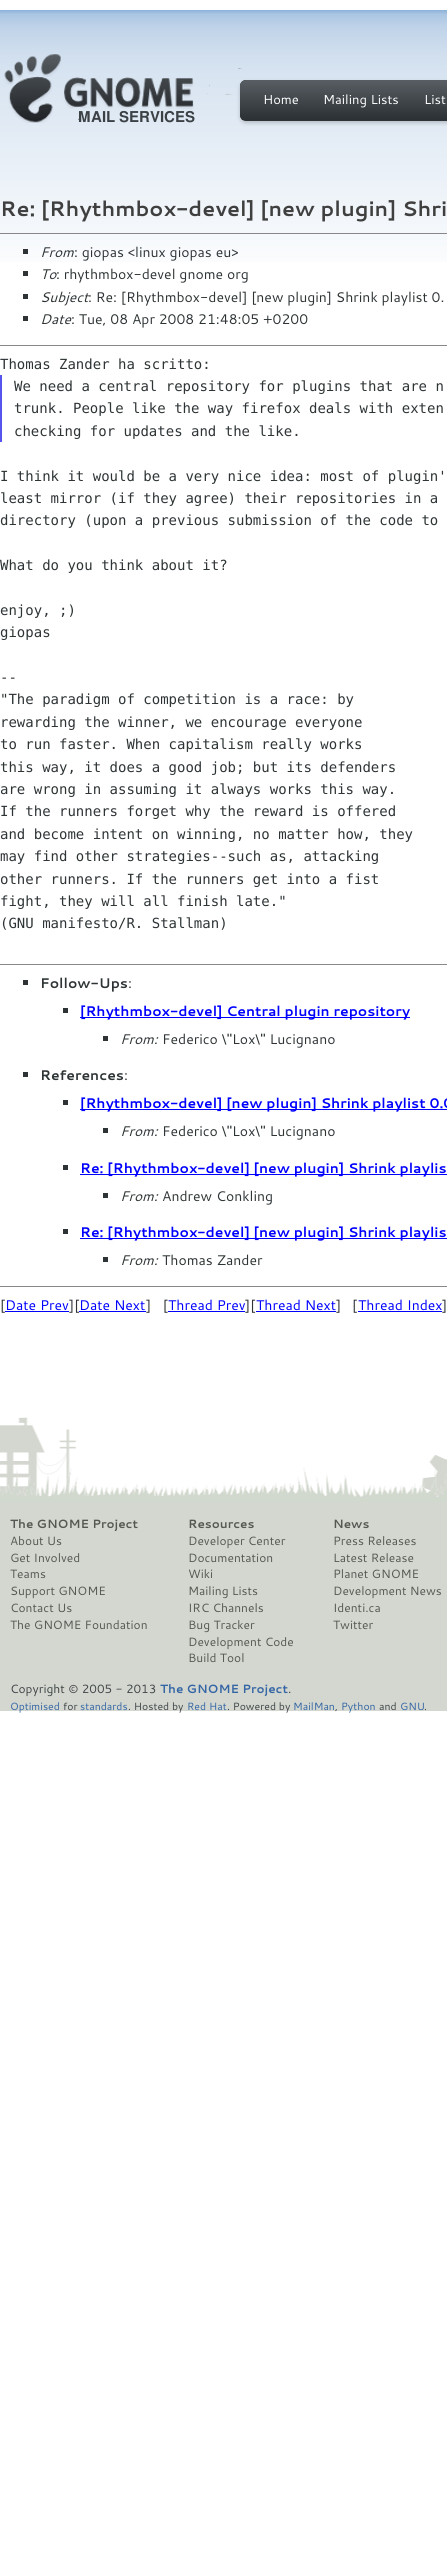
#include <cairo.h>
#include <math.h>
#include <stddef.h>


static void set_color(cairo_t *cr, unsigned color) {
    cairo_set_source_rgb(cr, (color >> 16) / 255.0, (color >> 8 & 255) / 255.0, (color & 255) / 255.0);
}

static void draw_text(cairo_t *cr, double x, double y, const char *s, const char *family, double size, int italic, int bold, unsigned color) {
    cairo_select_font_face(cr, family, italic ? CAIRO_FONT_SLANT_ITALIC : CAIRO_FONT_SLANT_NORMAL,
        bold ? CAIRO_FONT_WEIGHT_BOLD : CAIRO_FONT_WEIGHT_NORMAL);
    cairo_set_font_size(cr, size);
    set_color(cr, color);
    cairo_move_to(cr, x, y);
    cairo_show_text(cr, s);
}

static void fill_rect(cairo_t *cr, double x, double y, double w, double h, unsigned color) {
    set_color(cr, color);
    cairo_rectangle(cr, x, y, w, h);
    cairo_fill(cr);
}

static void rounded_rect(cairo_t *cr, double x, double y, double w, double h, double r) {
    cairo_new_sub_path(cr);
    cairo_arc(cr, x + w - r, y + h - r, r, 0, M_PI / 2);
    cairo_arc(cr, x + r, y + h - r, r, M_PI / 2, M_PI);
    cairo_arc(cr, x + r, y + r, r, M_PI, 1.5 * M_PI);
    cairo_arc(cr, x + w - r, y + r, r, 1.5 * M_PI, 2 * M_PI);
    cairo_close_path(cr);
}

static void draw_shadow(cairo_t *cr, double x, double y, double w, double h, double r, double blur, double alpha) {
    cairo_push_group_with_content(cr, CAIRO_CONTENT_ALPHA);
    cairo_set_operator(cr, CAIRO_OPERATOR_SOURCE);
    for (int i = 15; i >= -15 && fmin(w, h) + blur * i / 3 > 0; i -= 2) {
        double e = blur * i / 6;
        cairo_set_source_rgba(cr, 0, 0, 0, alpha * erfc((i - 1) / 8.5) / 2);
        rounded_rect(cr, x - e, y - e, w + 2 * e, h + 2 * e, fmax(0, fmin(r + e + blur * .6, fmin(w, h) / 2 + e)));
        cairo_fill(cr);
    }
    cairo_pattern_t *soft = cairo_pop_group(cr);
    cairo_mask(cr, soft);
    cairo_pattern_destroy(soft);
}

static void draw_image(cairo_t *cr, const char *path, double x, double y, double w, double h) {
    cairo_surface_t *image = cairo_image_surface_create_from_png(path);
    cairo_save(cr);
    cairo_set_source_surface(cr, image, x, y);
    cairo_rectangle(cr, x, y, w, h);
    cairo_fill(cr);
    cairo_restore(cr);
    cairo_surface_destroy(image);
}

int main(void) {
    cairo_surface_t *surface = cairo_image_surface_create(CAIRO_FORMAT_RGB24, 447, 2557);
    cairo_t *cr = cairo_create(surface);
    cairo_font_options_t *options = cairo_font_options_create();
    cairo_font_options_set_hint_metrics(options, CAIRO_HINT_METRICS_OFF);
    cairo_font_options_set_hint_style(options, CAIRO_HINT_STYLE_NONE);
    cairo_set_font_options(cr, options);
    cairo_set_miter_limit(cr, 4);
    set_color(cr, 0xFFFFFF);
    cairo_paint(cr);
    draw_image(cr, "assets/img1.png", 0, 10, 447, 252);
    draw_image(cr, "assets/img2.png", 4, 54, 238, 69);
    set_color(cr, 0x000000);
    draw_shadow(cr, 240, 82, 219, 41, 6, 2, 0.2);
    set_color(cr, 0x2E3436);
    rounded_rect(cr, 240, 80, 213, 41, 6);
    cairo_fill(cr);
    draw_image(cr, "assets/img3.png", 240, 80, 207, 40);
    draw_text(cr, 263, 104, "Home", "Cantarell", 13, 0, 0, 0xFFFFFF);
    draw_text(cr, 323, 104, "Mailing Lists", "Cantarell", 13, 0, 0, 0xFFFFFF);
    draw_text(cr, 424, 104, "List", "Cantarell", 13, 0, 0, 0xFFFFFF);
    draw_text(cr, 0, 216, "Re: [Rhythmbox-devel] [new plugin] Shri", "Cantarell", 21, 0, 1, 0x3F3F3F);
    fill_rect(cr, 0, 233, 447, 1, 0x888888);
    fill_rect(cr, 23, 249, 5, 5, 0x2E3436);
    draw_text(cr, 40, 257, "From", "Cantarell", 14, 1, 0, 0x2E3436);
    draw_text(cr, 74, 257, ": giopas <linux giopas eu>", "Cantarell", 14, 0, 0, 0x2E3436);
    fill_rect(cr, 23, 271, 5, 5, 0x2E3436);
    draw_text(cr, 40, 279, "To", "Cantarell", 14, 1, 0, 0x2E3436);
    draw_text(cr, 56, 279, ": rhythmbox-devel gnome org", "Cantarell", 14, 0, 0, 0x2E3436);
    fill_rect(cr, 23, 294, 5, 5, 0x2E3436);
    draw_text(cr, 40, 302, "Subject", "Cantarell", 14, 1, 0, 0x2E3436);
    draw_text(cr, 88, 302, ": Re: [Rhythmbox-devel] [new plugin] Shrink playlist 0.", "Cantarell", 14, 0, 0, 0x2E3436);
    fill_rect(cr, 23, 316, 5, 5, 0x2E3436);
    draw_text(cr, 40, 324, "Date", "Cantarell", 14, 1, 0, 0x2E3436);
    draw_text(cr, 71, 324, ": Tue, 08 Apr 2008 21:48:05 +0200", "Cantarell", 14, 0, 0, 0x2E3436);
    fill_rect(cr, 0, 345, 447, 1, 0x888888);
    draw_text(cr, 0, 369, "Thomas Zander ha scritto:", "DejaVu Sans Mono", 14, 0, 0, 0x2E3436);
    fill_rect(cr, 0, 375, 2, 67, 0x5555EE);
    draw_text(cr, 14, 391, "We need a central repository for plugins that are n", "DejaVu Sans Mono", 14, 0, 0, 0x2E3436);
    draw_text(cr, 14, 413, "trunk. People like the way firefox deals with exten", "DejaVu Sans Mono", 14, 0, 0, 0x2E3436);
    draw_text(cr, 14, 436, "checking for updates and the like.", "DejaVu Sans Mono", 14, 0, 0, 0x2E3436);
    draw_text(cr, 0, 481, "I think it would be a very nice idea: most of plugin'", "DejaVu Sans Mono", 14, 0, 0, 0x2E3436);
    draw_text(cr, 0, 503, "least mirror (if they agree) their repositories in a", "DejaVu Sans Mono", 14, 0, 0, 0x2E3436);
    draw_text(cr, 0, 525, "directory (upon a previous submission of the code to", "DejaVu Sans Mono", 14, 0, 0, 0x2E3436);
    draw_text(cr, 0, 570, "What do you think about it?", "DejaVu Sans Mono", 14, 0, 0, 0x2E3436);
    draw_text(cr, 0, 615, "enjoy, ;)", "DejaVu Sans Mono", 14, 0, 0, 0x2E3436);
    draw_text(cr, 0, 637, "giopas", "DejaVu Sans Mono", 14, 0, 0, 0x2E3436);
    draw_text(cr, 0, 682, "--", "DejaVu Sans Mono", 14, 0, 0, 0x2E3436);
    draw_text(cr, 0, 704, "\"The paradigm of competition is a race: by", "DejaVu Sans Mono", 14, 0, 0, 0x2E3436);
    draw_text(cr, 0, 727, "rewarding the winner, we encourage everyone", "DejaVu Sans Mono", 14, 0, 0, 0x2E3436);
    draw_text(cr, 0, 749, "to run faster. When capitalism really works", "DejaVu Sans Mono", 14, 0, 0, 0x2E3436);
    draw_text(cr, 0, 772, "this way, it does a good job; but its defenders", "DejaVu Sans Mono", 14, 0, 0, 0x2E3436);
    draw_text(cr, 0, 794, "are wrong in assuming it always works this way.", "DejaVu Sans Mono", 14, 0, 0, 0x2E3436);
    draw_text(cr, 0, 816, "If the runners forget why the reward is offered", "DejaVu Sans Mono", 14, 0, 0, 0x2E3436);
    draw_text(cr, 0, 839, "and become intent on winning, no matter how, they", "DejaVu Sans Mono", 14, 0, 0, 0x2E3436);
    draw_text(cr, 0, 861, "may find other strategies--such as, attacking", "DejaVu Sans Mono", 14, 0, 0, 0x2E3436);
    draw_text(cr, 0, 884, "other runners. If the runners get into a fist", "DejaVu Sans Mono", 14, 0, 0, 0x2E3436);
    draw_text(cr, 0, 906, "fight, they will all finish late.\"", "DejaVu Sans Mono", 14, 0, 0, 0x2E3436);
    draw_text(cr, 0, 928, "(GNU manifesto/R. Stallman)", "DejaVu Sans Mono", 14, 0, 0, 0x2E3436);
    fill_rect(cr, 0, 964, 447, 1, 0x888888);
    fill_rect(cr, 23, 980, 5, 5, 0x2E3436);
    draw_text(cr, 40, 988, "Follow-Ups", "Cantarell", 14, 0, 1, 0x2E3436);
    draw_text(cr, 128, 988, ":", "Cantarell", 14, 0, 0, 0x2E3436);
    fill_rect(cr, 63, 1008, 5, 5, 0x2E3436);
    fill_rect(cr, 80, 1017, 330, 1, 0x0000FF);
    draw_text(cr, 80, 1016, "[Rhythmbox-devel] Central plugin repository", "Cantarell", 14, 0, 1, 0x0000FF);
    fill_rect(cr, 103, 1036, 5, 5, 0x2E3436);
    draw_text(cr, 120, 1044, "From:", "Cantarell", 14, 1, 0, 0x2E3436);
    draw_text(cr, 162, 1044, "Federico \\\"Lox\\\" Lucignano", "Cantarell", 14, 0, 0, 0x2E3436);
    fill_rect(cr, 23, 1072, 5, 5, 0x2E3436);
    draw_text(cr, 40, 1080, "References", "Cantarell", 14, 0, 1, 0x2E3436);
    draw_text(cr, 124, 1080, ":", "Cantarell", 14, 0, 0, 0x2E3436);
    fill_rect(cr, 63, 1100, 5, 5, 0x2E3436);
    fill_rect(cr, 80, 1109, 367, 1, 0x0000FF);
    draw_text(cr, 80, 1108, "[Rhythmbox-devel] [new plugin] Shrink playlist 0.0", "Cantarell", 14, 0, 1, 0x0000FF);
    fill_rect(cr, 103, 1128, 5, 5, 0x2E3436);
    draw_text(cr, 120, 1136, "From:", "Cantarell", 14, 1, 0, 0x2E3436);
    draw_text(cr, 162, 1136, "Federico \\\"Lox\\\" Lucignano", "Cantarell", 14, 0, 0, 0x2E3436);
    fill_rect(cr, 63, 1165, 5, 5, 0x2E3436);
    fill_rect(cr, 80, 1174, 367, 1, 0x0000FF);
    draw_text(cr, 80, 1173, "Re: [Rhythmbox-devel] [new plugin] Shrink playlis", "Cantarell", 14, 0, 1, 0x0000FF);
    fill_rect(cr, 103, 1193, 5, 5, 0x2E3436);
    draw_text(cr, 120, 1201, "From:", "Cantarell", 14, 1, 0, 0x2E3436);
    draw_text(cr, 162, 1201, "Andrew Conkling", "Cantarell", 14, 0, 0, 0x2E3436);
    fill_rect(cr, 63, 1229, 5, 5, 0x2E3436);
    fill_rect(cr, 80, 1238, 367, 1, 0x0000FF);
    draw_text(cr, 80, 1237, "Re: [Rhythmbox-devel] [new plugin] Shrink playlis", "Cantarell", 14, 0, 1, 0x0000FF);
    fill_rect(cr, 103, 1257, 5, 5, 0x2E3436);
    draw_text(cr, 120, 1265, "From:", "Cantarell", 14, 1, 0, 0x2E3436);
    draw_text(cr, 162, 1265, "Thomas Zander", "Cantarell", 14, 0, 0, 0x2E3436);
    fill_rect(cr, 0, 1286, 447, 1, 0x888888);
    draw_text(cr, 0, 1310, "[", "Cantarell", 14, 0, 0, 0x2E3436);
    draw_text(cr, 5, 1310, "Date Prev", "Cantarell", 14, 0, 0, 0x0000FF);
    fill_rect(cr, 5, 1311, 64, 1, 0x0000FF);
    draw_text(cr, 69, 1310, "][", "Cantarell", 14, 0, 0, 0x2E3436);
    draw_text(cr, 79, 1310, "Date Next", "Cantarell", 14, 0, 0, 0x0000FF);
    fill_rect(cr, 79, 1311, 67, 1, 0x0000FF);
    draw_text(cr, 146, 1310, "]   [", "Cantarell", 14, 0, 0, 0x2E3436);
    draw_text(cr, 168, 1310, "Thread Prev", "Cantarell", 14, 0, 0, 0x0000FF);
    fill_rect(cr, 168, 1311, 77, 1, 0x0000FF);
    draw_text(cr, 245, 1310, "][", "Cantarell", 14, 0, 0, 0x2E3436);
    draw_text(cr, 256, 1310, "Thread Next", "Cantarell", 14, 0, 0, 0x0000FF);
    fill_rect(cr, 256, 1311, 80, 1, 0x0000FF);
    draw_text(cr, 336, 1310, "]", "Cantarell", 14, 0, 0, 0x2E3436);
    draw_text(cr, 352, 1310, "[", "Cantarell", 14, 0, 0, 0x2E3436);
    draw_text(cr, 358, 1310, "Thread Index", "Cantarell", 14, 0, 0, 0x0000FF);
    fill_rect(cr, 358, 1311, 84, 1, 0x0000FF);
    draw_text(cr, 442, 1310, "]", "Cantarell", 14, 0, 0, 0x2E3436);
    draw_image(cr, "assets/img4.png", 0, 1417, 447, 79);
    draw_image(cr, "assets/img5.png", 0, 1467, 447, 35);
    fill_rect(cr, 0, 1502, 447, 209, 0xD3D7CF);
    draw_text(cr, 10, 1528, "The GNOME Project", "Cantarell", 12, 0, 1, 0x555753);
    draw_text(cr, 10, 1545, "About Us", "Cantarell", 12, 0, 0, 0x555753);
    draw_text(cr, 10, 1562, "Get Involved", "Cantarell", 12, 0, 0, 0x555753);
    draw_text(cr, 10, 1578, "Teams", "Cantarell", 12, 0, 0, 0x555753);
    draw_text(cr, 10, 1595, "Support GNOME", "Cantarell", 12, 0, 0, 0x555753);
    draw_text(cr, 10, 1612, "Contact Us", "Cantarell", 12, 0, 0, 0x555753);
    draw_text(cr, 10, 1629, "The GNOME Foundation", "Cantarell", 12, 0, 0, 0x555753);
    draw_text(cr, 188, 1528, "Resources", "Cantarell", 12, 0, 1, 0x555753);
    draw_text(cr, 188, 1545, "Developer Center", "Cantarell", 12, 0, 0, 0x555753);
    draw_text(cr, 188, 1562, "Documentation", "Cantarell", 12, 0, 0, 0x555753);
    draw_text(cr, 188, 1578, "Wiki", "Cantarell", 12, 0, 0, 0x555753);
    draw_text(cr, 188, 1595, "Mailing Lists", "Cantarell", 12, 0, 0, 0x555753);
    draw_text(cr, 188, 1612, "IRC Channels", "Cantarell", 12, 0, 0, 0x555753);
    draw_text(cr, 188, 1629, "Bug Tracker", "Cantarell", 12, 0, 0, 0x555753);
    draw_text(cr, 188, 1646, "Development Code", "Cantarell", 12, 0, 0, 0x555753);
    draw_text(cr, 188, 1662, "Build Tool", "Cantarell", 12, 0, 0, 0x555753);
    draw_text(cr, 333, 1528, "News", "Cantarell", 12, 0, 1, 0x555753);
    draw_text(cr, 333, 1545, "Press Releases", "Cantarell", 12, 0, 0, 0x555753);
    draw_text(cr, 333, 1562, "Latest Release", "Cantarell", 12, 0, 0, 0x555753);
    draw_text(cr, 333, 1578, "Planet GNOME", "Cantarell", 12, 0, 0, 0x555753);
    draw_text(cr, 333, 1595, "Development News", "Cantarell", 12, 0, 0, 0x555753);
    draw_text(cr, 333, 1612, "Identi.ca", "Cantarell", 12, 0, 0, 0x555753);
    draw_text(cr, 333, 1629, "Twitter", "Cantarell", 12, 0, 0, 0x555753);
    draw_text(cr, 10, 1693, "Copyright © 2005 - 2013", "Cantarell", 12, 0, 0, 0x3F4448);
    draw_text(cr, 160, 1693, "The GNOME Project", "Cantarell", 12, 0, 1, 0x3465A4);
    draw_text(cr, 288, 1693, ".", "Cantarell", 12, 0, 0, 0x3F4448);
    draw_text(cr, 10, 1710, "Optimised", "Cantarell", 10.5, 0, 0, 0x3465A4);
    draw_text(cr, 63, 1710, "for", "Cantarell", 10.5, 0, 0, 0x3F4448);
    draw_text(cr, 80, 1710, "standards", "Cantarell", 10.5, 0, 0, 0x3465A4);
    draw_text(cr, 128, 1710, ". Hosted by", "Cantarell", 10.5, 0, 0, 0x3F4448);
    draw_text(cr, 187, 1710, "Red Hat", "Cantarell", 10.5, 0, 0, 0x3465A4);
    draw_text(cr, 227, 1710, ". Powered by", "Cantarell", 10.5, 0, 0, 0x3F4448);
    draw_text(cr, 293, 1710, "MailMan", "Cantarell", 10.5, 0, 0, 0x3465A4);
    draw_text(cr, 335, 1710, ",", "Cantarell", 10.5, 0, 0, 0x3F4448);
    draw_text(cr, 341, 1710, "Python", "Cantarell", 10.5, 0, 0, 0x3465A4);
    draw_text(cr, 379, 1710, "and", "Cantarell", 10.5, 0, 0, 0x3F4448);
    draw_text(cr, 400, 1710, "GNU", "Cantarell", 10.5, 0, 0, 0x3465A4);
    draw_text(cr, 424, 1710, ".", "Cantarell", 10.5, 0, 0, 0x3F4448);
    cairo_surface_write_to_png(surface, "output.png");
    cairo_font_options_destroy(options);
    cairo_destroy(cr);
    cairo_surface_destroy(surface);
    return 0;
}
